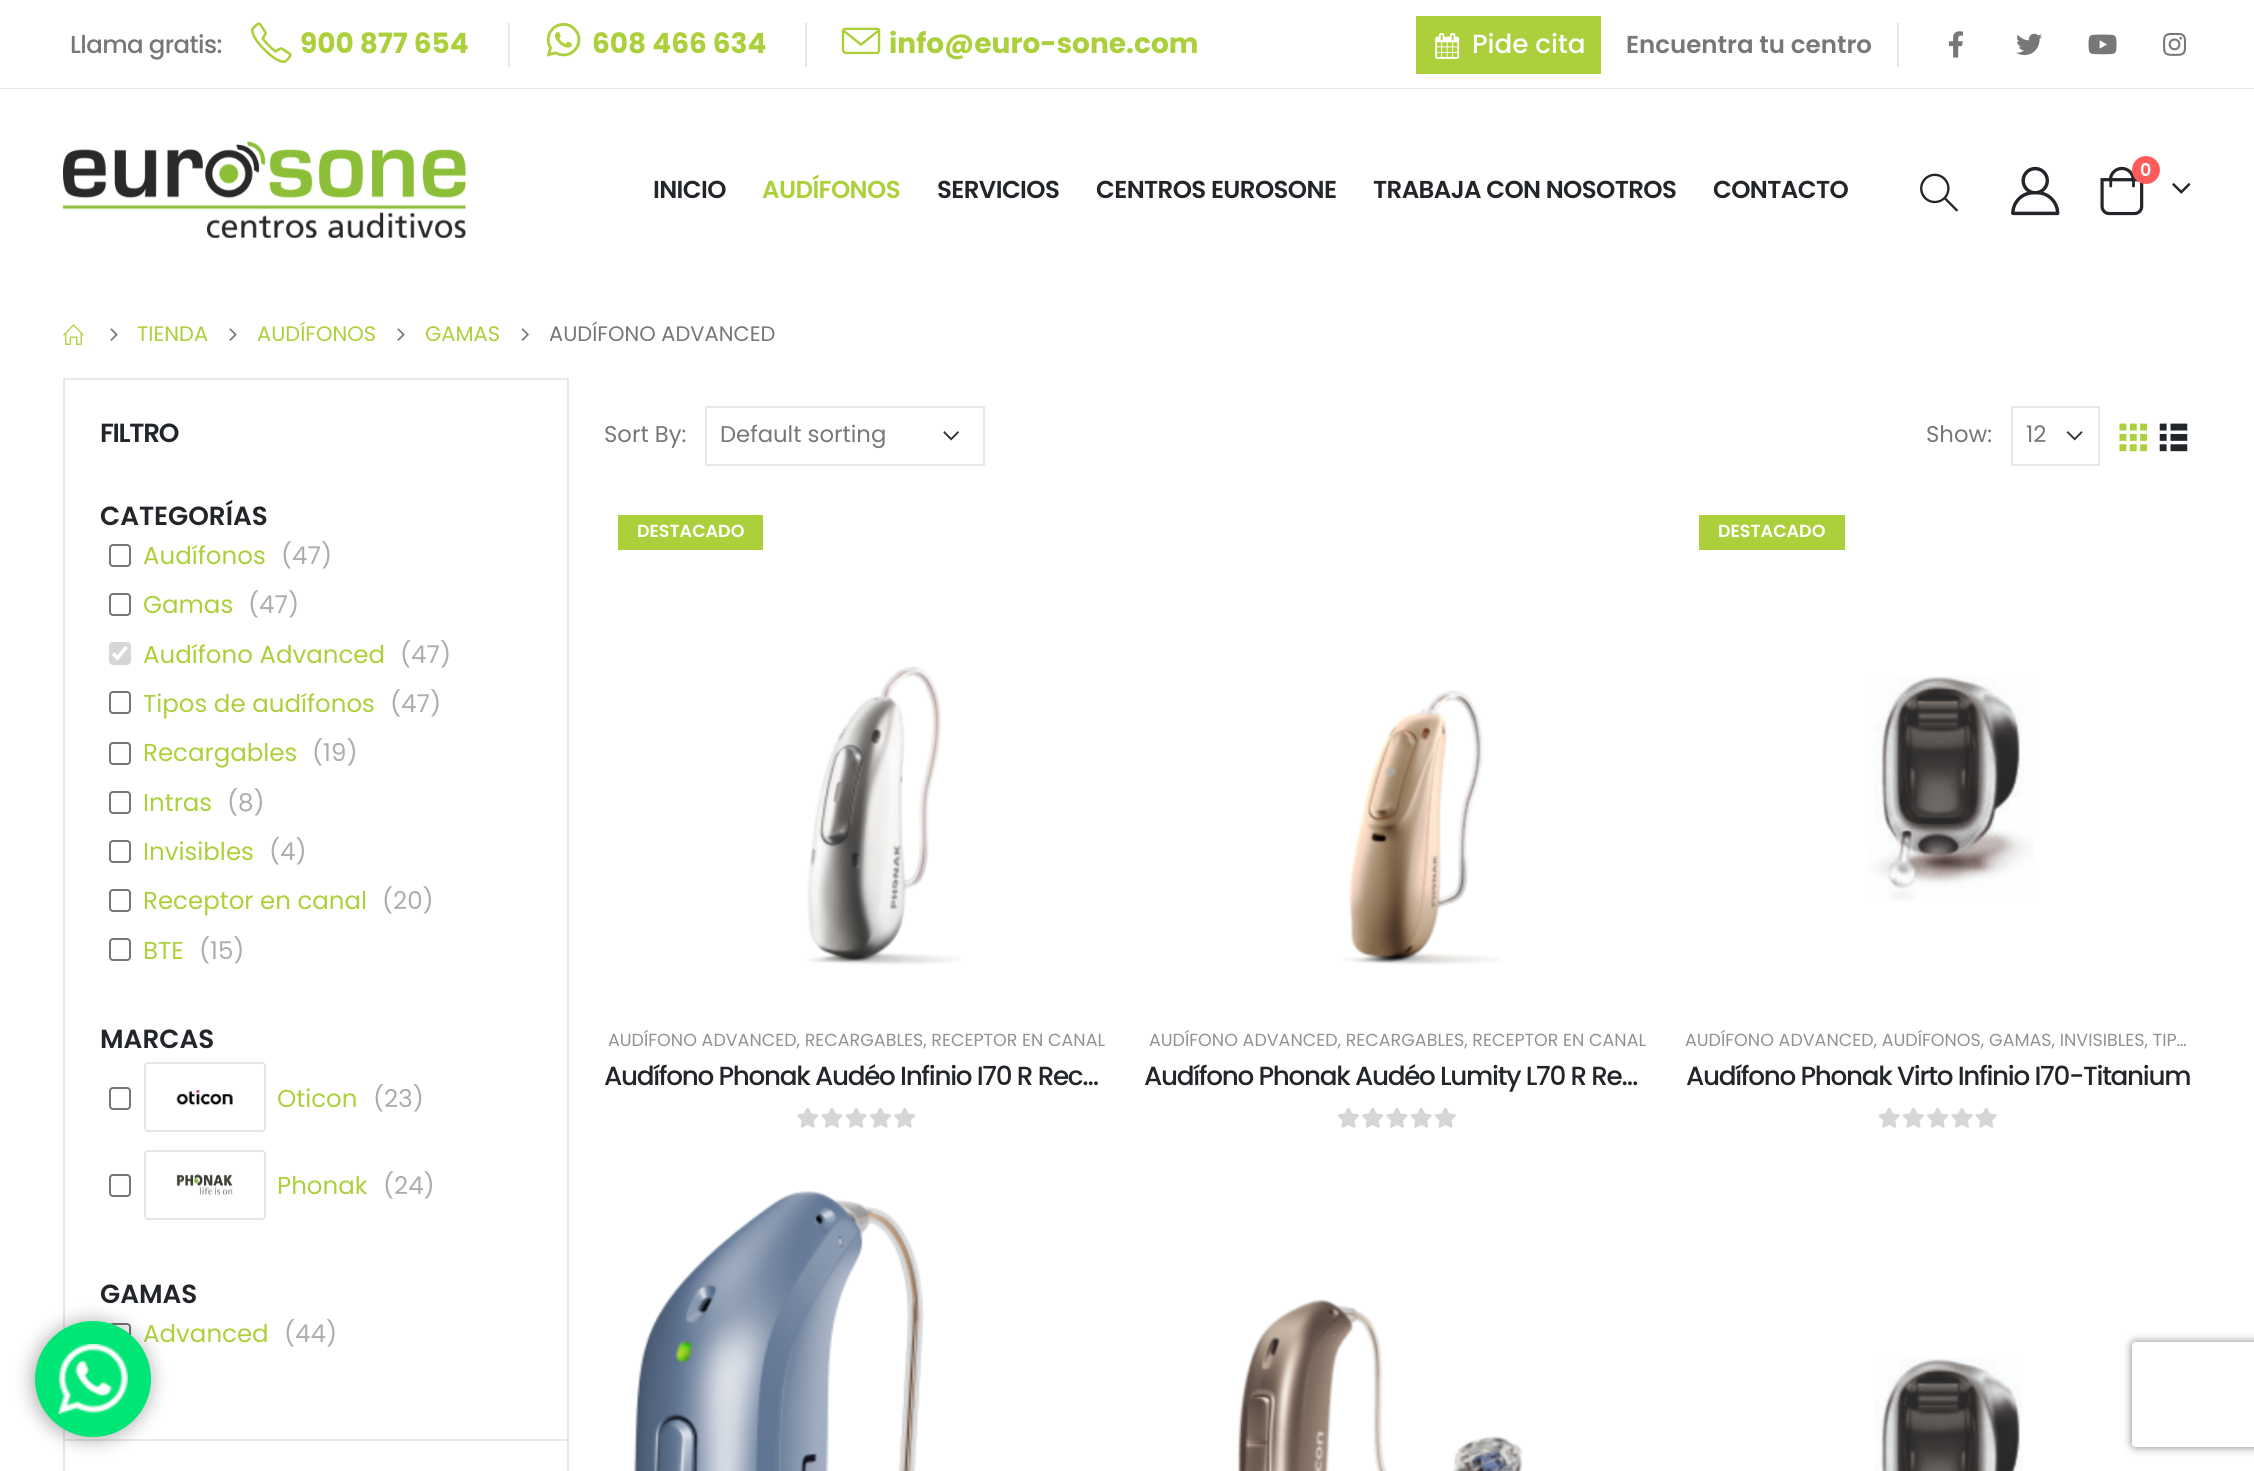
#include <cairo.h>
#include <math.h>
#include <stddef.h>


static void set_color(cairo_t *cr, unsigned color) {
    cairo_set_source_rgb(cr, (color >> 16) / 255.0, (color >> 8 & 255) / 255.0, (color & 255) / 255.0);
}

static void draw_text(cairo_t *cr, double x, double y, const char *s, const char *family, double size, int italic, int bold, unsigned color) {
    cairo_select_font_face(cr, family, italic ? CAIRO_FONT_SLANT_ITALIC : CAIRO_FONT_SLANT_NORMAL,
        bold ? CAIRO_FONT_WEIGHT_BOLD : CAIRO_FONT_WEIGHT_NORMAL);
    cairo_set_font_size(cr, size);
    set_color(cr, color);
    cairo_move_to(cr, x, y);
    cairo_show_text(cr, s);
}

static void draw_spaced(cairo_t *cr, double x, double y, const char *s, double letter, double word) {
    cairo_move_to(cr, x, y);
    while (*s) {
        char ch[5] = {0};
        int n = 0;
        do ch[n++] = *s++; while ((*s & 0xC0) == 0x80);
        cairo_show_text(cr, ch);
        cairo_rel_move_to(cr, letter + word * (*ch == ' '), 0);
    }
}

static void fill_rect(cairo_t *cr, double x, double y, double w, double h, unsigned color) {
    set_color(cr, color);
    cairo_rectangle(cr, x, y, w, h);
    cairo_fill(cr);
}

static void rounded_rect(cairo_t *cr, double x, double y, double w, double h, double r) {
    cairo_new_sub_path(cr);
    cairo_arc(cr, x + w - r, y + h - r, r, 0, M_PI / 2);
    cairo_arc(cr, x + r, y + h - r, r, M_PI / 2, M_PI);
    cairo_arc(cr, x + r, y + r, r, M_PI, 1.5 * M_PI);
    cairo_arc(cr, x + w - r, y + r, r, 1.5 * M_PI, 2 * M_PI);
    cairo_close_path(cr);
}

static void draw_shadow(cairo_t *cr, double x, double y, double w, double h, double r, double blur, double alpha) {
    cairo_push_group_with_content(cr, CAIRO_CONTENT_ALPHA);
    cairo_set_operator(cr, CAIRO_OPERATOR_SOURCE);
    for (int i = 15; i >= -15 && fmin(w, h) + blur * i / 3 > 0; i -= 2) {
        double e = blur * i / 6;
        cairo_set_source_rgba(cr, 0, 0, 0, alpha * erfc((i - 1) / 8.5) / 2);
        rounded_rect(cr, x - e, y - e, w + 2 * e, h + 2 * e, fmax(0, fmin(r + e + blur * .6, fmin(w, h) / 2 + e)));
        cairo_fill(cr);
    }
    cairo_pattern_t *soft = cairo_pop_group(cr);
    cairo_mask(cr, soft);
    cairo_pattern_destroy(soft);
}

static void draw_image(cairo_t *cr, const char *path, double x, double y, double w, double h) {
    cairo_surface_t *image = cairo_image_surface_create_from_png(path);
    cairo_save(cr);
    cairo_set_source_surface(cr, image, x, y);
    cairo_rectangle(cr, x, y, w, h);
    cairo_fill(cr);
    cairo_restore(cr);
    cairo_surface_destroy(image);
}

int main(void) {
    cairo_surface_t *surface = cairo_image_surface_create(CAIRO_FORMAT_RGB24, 2254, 1471);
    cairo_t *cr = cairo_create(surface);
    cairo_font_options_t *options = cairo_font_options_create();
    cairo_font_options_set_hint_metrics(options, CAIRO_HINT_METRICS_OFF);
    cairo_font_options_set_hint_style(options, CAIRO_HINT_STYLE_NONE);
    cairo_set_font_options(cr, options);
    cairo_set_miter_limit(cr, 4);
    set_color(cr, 0xFFFFFF);
    cairo_paint(cr);
    fill_rect(cr, 0, 88, 2254, 1, 0xE7E7E7);
    cairo_select_font_face(cr, "Poppins Medium", CAIRO_FONT_SLANT_NORMAL, CAIRO_FONT_WEIGHT_NORMAL);
    cairo_set_font_size(cr, 24.5);
    set_color(cr, 0x777777);
    draw_spaced(cr, 70, 53, "Llama gratis:", -0.6, 0);
    draw_image(cr, "assets/img1.png", 250, 22, 42, 42);
    draw_text(cr, 300, 53, "900 877 654", "Poppins", 28, 0, 1, 0xABD03B);
    fill_rect(cr, 508, 23, 2, 44, 0xE7E7E7);
    draw_image(cr, "assets/img2.png", 546, 23, 35, 34);
    draw_text(cr, 592, 53, "608 466 634", "Poppins", 28, 0, 1, 0xABD03B);
    fill_rect(cr, 805, 23, 2, 44, 0xE7E7E7);
    draw_image(cr, "assets/img3.png", 841, 27, 40, 28);
    draw_text(cr, 889, 53, "info@euro-sone.com", "Poppins", 28, 0, 1, 0xABD03B);
    fill_rect(cr, 1416, 16, 185, 58, 0xABD03B);
    draw_image(cr, "assets/img4.png", 1435, 33, 25, 26);
    draw_text(cr, 1472, 53, "Pide cita", "Poppins Medium", 26.25, 0, 0, 0xFFFFFF);
    draw_text(cr, 1626, 53, "Encuentra tu centro", "Poppins SemiBold", 24.5, 0, 0, 0x777777);
    fill_rect(cr, 1897, 23, 2, 44, 0xE7E7E7);
    draw_image(cr, "assets/img5.png", 1948, 31, 15, 27);
    draw_image(cr, "assets/img6.png", 2016, 33, 26, 23);
    draw_image(cr, "assets/img7.png", 2088, 34, 29, 21);
    draw_image(cr, "assets/img8.png", 2163, 32, 23, 24);
    draw_image(cr, "assets/img9.png", 63, 141, 403, 97);
    set_color(cr, 0x222529);
    draw_spaced(cr, 653, 198, "INICIO", -0.6, 0);
    set_color(cr, 0xABD03B);
    draw_spaced(cr, 762, 198, "AUDÍFONOS", -0.6, 0);
    set_color(cr, 0x222529);
    draw_spaced(cr, 937, 198, "SERVICIOS", -0.6, 0);
    draw_spaced(cr, 1096, 198, "CENTROS EUROSONE", -0.6, 0);
    draw_spaced(cr, 1373, 198, "TRABAJA CON NOSOTROS", -0.6, 0);
    draw_spaced(cr, 1713, 198, "CONTACTO", -0.6, 0);
    draw_image(cr, "assets/img10.png", 1920, 173, 38, 39);
    draw_image(cr, "assets/img11.png", 2011, 166, 49, 50);
    draw_image(cr, "assets/img12.png", 2100, 166, 44, 50);
    set_color(cr, 0xFF5B5B);
    cairo_arc(cr, 2146, 170, 14, 0, 2 * M_PI);
    cairo_fill(cr);
    draw_text(cr, 2140, 176, "0", "Poppins SemiBold", 17.5, 0, 0, 0xFFFFFF);
    draw_image(cr, "assets/img13.png", 2172, 183, 19, 11);
    draw_image(cr, "assets/img14.png", 63, 324, 21, 21);
    draw_image(cr, "assets/img15.png", 110, 328, 8, 13);
    draw_text(cr, 137, 341, "TIENDA", "Poppins", 21, 0, 0, 0xABD03B);
    draw_image(cr, "assets/img15.png", 229, 328, 8, 13);
    draw_text(cr, 257, 341, "AUDÍFONOS", "Poppins", 21, 0, 0, 0xABD03B);
    draw_image(cr, "assets/img15.png", 397, 328, 8, 13);
    draw_text(cr, 425, 341, "GAMAS", "Poppins", 21, 0, 0, 0xABD03B);
    draw_image(cr, "assets/img16.png", 521, 328, 8, 13);
    draw_text(cr, 549, 341, "AUDÍFONO ADVANCED", "Poppins", 21, 0, 0, 0x777777);
    cairo_rectangle(cr, 64, 379, 504, 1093);
    set_color(cr, 0xE7E7E7);
    cairo_stroke(cr);
    fill_rect(cr, 65, 1439, 502, 2, 0xE7E7E7);
    cairo_select_font_face(cr, "Poppins SemiBold", CAIRO_FONT_SLANT_NORMAL, CAIRO_FONT_WEIGHT_NORMAL);
    cairo_set_font_size(cr, 26.25);
    set_color(cr, 0x222529);
    draw_spaced(cr, 100, 442, "FILTRO", -1.3, 0);
    draw_text(cr, 100, 525, "CATEGORÍAS", "Poppins SemiBold", 26.25, 0, 0, 0x222529);
    rounded_rect(cr, 110, 545, 20, 21, 3);
    set_color(cr, 0x767676);
    cairo_stroke(cr);
    draw_text(cr, 143, 564, "Audífonos", "Poppins", 24.5, 0, 0, 0xABD03B);
    draw_text(cr, 281, 564, "(47)", "Poppins", 24.5, 0, 0, 0xADADAD);
    rounded_rect(cr, 110, 594, 20, 21, 3);
    set_color(cr, 0x767676);
    cairo_stroke(cr);
    draw_text(cr, 143, 613, "Gamas", "Poppins", 24.5, 0, 0, 0xABD03B);
    draw_text(cr, 248, 613, "(47)", "Poppins", 24.5, 0, 0, 0xADADAD);
    set_color(cr, 0xD6D6D6);
    rounded_rect(cr, 109, 642, 22, 23, 4);
    cairo_fill(cr);
    cairo_new_path(cr);
    cairo_move_to(cr, 113, 653.5);
    cairo_line_to(cr, 117.5, 658);
    cairo_line_to(cr, 126.5, 647);
    set_color(cr, 0xFFFFFF);
    cairo_set_line_width(cr, 3.6);
    cairo_stroke(cr);
    draw_text(cr, 143, 663, "Audífono Advanced", "Poppins", 24.5, 0, 0, 0xABD03B);
    draw_text(cr, 400, 663, "(47)", "Poppins", 24.5, 0, 0, 0xADADAD);
    rounded_rect(cr, 110, 692, 20, 21, 3);
    set_color(cr, 0x767676);
    cairo_set_line_width(cr, 2);
    cairo_stroke(cr);
    draw_text(cr, 143, 712, "Tipos de audífonos", "Poppins", 24.5, 0, 0, 0xABD03B);
    draw_text(cr, 390, 712, "(47)", "Poppins", 24.5, 0, 0, 0xADADAD);
    rounded_rect(cr, 110, 743, 20, 21, 3);
    set_color(cr, 0x767676);
    cairo_stroke(cr);
    draw_text(cr, 143, 761, "Recargables", "Poppins", 24.5, 0, 0, 0xABD03B);
    draw_text(cr, 312, 761, "(19)", "Poppins", 24.5, 0, 0, 0xADADAD);
    rounded_rect(cr, 110, 792, 20, 21, 3);
    set_color(cr, 0x767676);
    cairo_stroke(cr);
    draw_text(cr, 143, 811, "Intras", "Poppins", 24.5, 0, 0, 0xABD03B);
    draw_text(cr, 227, 811, "(8)", "Poppins", 24.5, 0, 0, 0xADADAD);
    rounded_rect(cr, 110, 841, 20, 21, 3);
    set_color(cr, 0x767676);
    cairo_stroke(cr);
    draw_text(cr, 143, 860, "Invisibles", "Poppins", 24.5, 0, 0, 0xABD03B);
    draw_text(cr, 269, 860, "(4)", "Poppins", 24.5, 0, 0, 0xADADAD);
    rounded_rect(cr, 110, 890, 20, 21, 3);
    set_color(cr, 0x767676);
    cairo_stroke(cr);
    draw_text(cr, 143, 909, "Receptor en canal", "Poppins", 24.5, 0, 0, 0xABD03B);
    draw_text(cr, 382, 909, "(20)", "Poppins", 24.5, 0, 0, 0xADADAD);
    rounded_rect(cr, 110, 939, 20, 21, 3);
    set_color(cr, 0x767676);
    cairo_stroke(cr);
    draw_text(cr, 143, 959, "BTE", "Poppins", 24.5, 0, 0, 0xABD03B);
    draw_text(cr, 199, 959, "(15)", "Poppins", 24.5, 0, 0, 0xADADAD);
    draw_text(cr, 100, 1048, "MARCAS", "Poppins SemiBold", 26.25, 0, 0, 0x222529);
    rounded_rect(cr, 110, 1088, 20, 21, 3);
    set_color(cr, 0x767676);
    cairo_stroke(cr);
    rounded_rect(cr, 145, 1063, 120, 68, 3);
    set_color(cr, 0xE6E6E6);
    cairo_stroke(cr);
    draw_image(cr, "assets/img17.png", 176, 1089, 57, 17);
    draw_text(cr, 277, 1107, "Oticon", "Poppins", 24.5, 0, 0, 0xABD03B);
    draw_text(cr, 373, 1107, "(23)", "Poppins", 24.5, 0, 0, 0xADADAD);
    rounded_rect(cr, 110, 1175, 20, 21, 3);
    set_color(cr, 0x767676);
    cairo_stroke(cr);
    rounded_rect(cr, 145, 1151, 120, 68, 3);
    set_color(cr, 0xE6E6E6);
    cairo_stroke(cr);
    draw_image(cr, "assets/img18.png", 176, 1174, 57, 22);
    draw_text(cr, 277, 1194, "Phonak", "Poppins", 24.5, 0, 0, 0xABD03B);
    draw_text(cr, 383, 1194, "(24)", "Poppins", 24.5, 0, 0, 0xADADAD);
    draw_text(cr, 100, 1303, "GAMAS", "Poppins SemiBold", 26.25, 0, 0, 0x222529);
    rounded_rect(cr, 110, 1324, 20, 21, 3);
    set_color(cr, 0x767676);
    cairo_stroke(cr);
    draw_text(cr, 143, 1342, "Advanced", "Poppins", 24.5, 0, 0, 0xABD03B);
    draw_text(cr, 284, 1342, "(44)", "Poppins", 24.5, 0, 0, 0xADADAD);
    draw_text(cr, 604, 442, "Sort By:", "Poppins", 22.75, 0, 0, 0x777777);
    draw_image(cr, "assets/img19.png", 943, 431, 16, 10);
    cairo_rectangle(cr, 706, 407, 278, 58);
    set_color(cr, 0xE7E7E7);
    cairo_stroke(cr);
    draw_text(cr, 720, 442, "Default sorting", "Poppins", 22.75, 0, 0, 0x777777);
    draw_text(cr, 1926, 442, "Show:", "Poppins", 22.75, 0, 0, 0x777777);
    draw_image(cr, "assets/img20.png", 2066, 431, 17, 10);
    cairo_rectangle(cr, 2012, 407, 87, 58);
    set_color(cr, 0xE7E7E7);
    cairo_stroke(cr);
    draw_text(cr, 2026, 442, "12", "Poppins", 22.75, 0, 0, 0x777777);
    draw_image(cr, "assets/img21.png", 2119, 423, 29, 29);
    draw_image(cr, "assets/img22.png", 2159, 423, 29, 29);
    fill_rect(cr, 618, 515, 145, 35, 0xABD03B);
    draw_text(cr, 637, 537, "DESTACADO", "Poppins SemiBold", 17.5, 0, 0, 0xFFFFFF);
    draw_image(cr, "assets/img23.png", 806, 666, 155, 299);
    draw_text(cr, 608, 1046, "AUDÍFONO ADVANCED, RECARGABLES, RECEPTOR EN CANAL", "Poppins", 17.5, 0, 0, 0x929292);
    cairo_select_font_face(cr, "Poppins Medium", CAIRO_FONT_SLANT_NORMAL, CAIRO_FONT_WEIGHT_NORMAL);
    cairo_set_font_size(cr, 26.25);
    set_color(cr, 0x222529);
    draw_spaced(cr, 604, 1085, "Audífono Phonak Audéo Infinio I70 R Rec…", -1.3, 0);
    draw_image(cr, "assets/img24.png", 797, 1108, 119, 20);
    draw_image(cr, "assets/img25.png", 1343, 690, 159, 275);
    draw_text(cr, 1149, 1046, "AUDÍFONO ADVANCED, RECARGABLES, RECEPTOR EN CANAL", "Poppins", 17.5, 0, 0, 0x929292);
    cairo_select_font_face(cr, "Poppins Medium", CAIRO_FONT_SLANT_NORMAL, CAIRO_FONT_WEIGHT_NORMAL);
    cairo_set_font_size(cr, 26.25);
    set_color(cr, 0x222529);
    draw_spaced(cr, 1144, 1085, "Audífono Phonak Audéo Lumity L70 R Re…", -1.3, 0);
    draw_image(cr, "assets/img26.png", 1337, 1108, 119, 20);
    fill_rect(cr, 1699, 515, 146, 35, 0xABD03B);
    draw_text(cr, 1718, 537, "DESTACADO", "Poppins SemiBold", 17.5, 0, 0, 0xFFFFFF);
    draw_image(cr, "assets/img27.png", 1868, 675, 166, 226);
    draw_text(cr, 1685, 1046, "AUDÍFONO ADVANCED, AUDÍFONOS, GAMAS, INVISIBLES, TIP…", "Poppins", 17.5, 0, 0, 0x929292);
    cairo_select_font_face(cr, "Poppins Medium", CAIRO_FONT_SLANT_NORMAL, CAIRO_FONT_WEIGHT_NORMAL);
    cairo_set_font_size(cr, 26.25);
    set_color(cr, 0x222529);
    draw_spaced(cr, 1686, 1085, "Audífono Phonak Virto Infinio I70-Titanium", -1.3, 0);
    draw_image(cr, "assets/img28.png", 1878, 1108, 119, 20);
    draw_image(cr, "assets/img29.png", 633, 1191, 292, 280);
    draw_image(cr, "assets/img30.png", 1237, 1299, 286, 172);
    draw_image(cr, "assets/img31.png", 1874, 1358, 149, 113);
    set_color(cr, 0x000000);
    draw_shadow(cr, 32, 1321, 119, 119, 59.5, 9, 0.3);
    set_color(cr, 0x00E676);
    cairo_arc(cr, 93, 1379, 58, 0, 2 * M_PI);
    cairo_fill(cr);
    draw_image(cr, "assets/img32.png", 57, 1344, 71, 70);
    cairo_save(cr);
    cairo_set_fill_rule(cr, CAIRO_FILL_RULE_EVEN_ODD);
    cairo_new_path(cr);
    cairo_move_to(cr, 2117, 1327);
    cairo_line_to(cr, 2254, 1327);
    cairo_line_to(cr, 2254, 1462);
    cairo_line_to(cr, 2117, 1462);
    cairo_close_path(cr);
    cairo_move_to(cr, 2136, 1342);
    cairo_line_to(cr, 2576, 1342);
    cairo_curve_to(cr, 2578, 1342, 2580, 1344, 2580, 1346);
    cairo_line_to(cr, 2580, 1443);
    cairo_curve_to(cr, 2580, 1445, 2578, 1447, 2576, 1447);
    cairo_line_to(cr, 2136, 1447);
    cairo_curve_to(cr, 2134, 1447, 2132, 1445, 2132, 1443);
    cairo_line_to(cr, 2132, 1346);
    cairo_curve_to(cr, 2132, 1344, 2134, 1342, 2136, 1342);
    cairo_close_path(cr);
    cairo_clip(cr);
    set_color(cr, 0x808080);
    draw_shadow(cr, 2132, 1342, 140, 105, 4, 4.5, 1);
    cairo_restore(cr);
    cairo_surface_write_to_png(surface, "output.png");
    cairo_font_options_destroy(options);
    cairo_destroy(cr);
    cairo_surface_destroy(surface);
    return 0;
}
